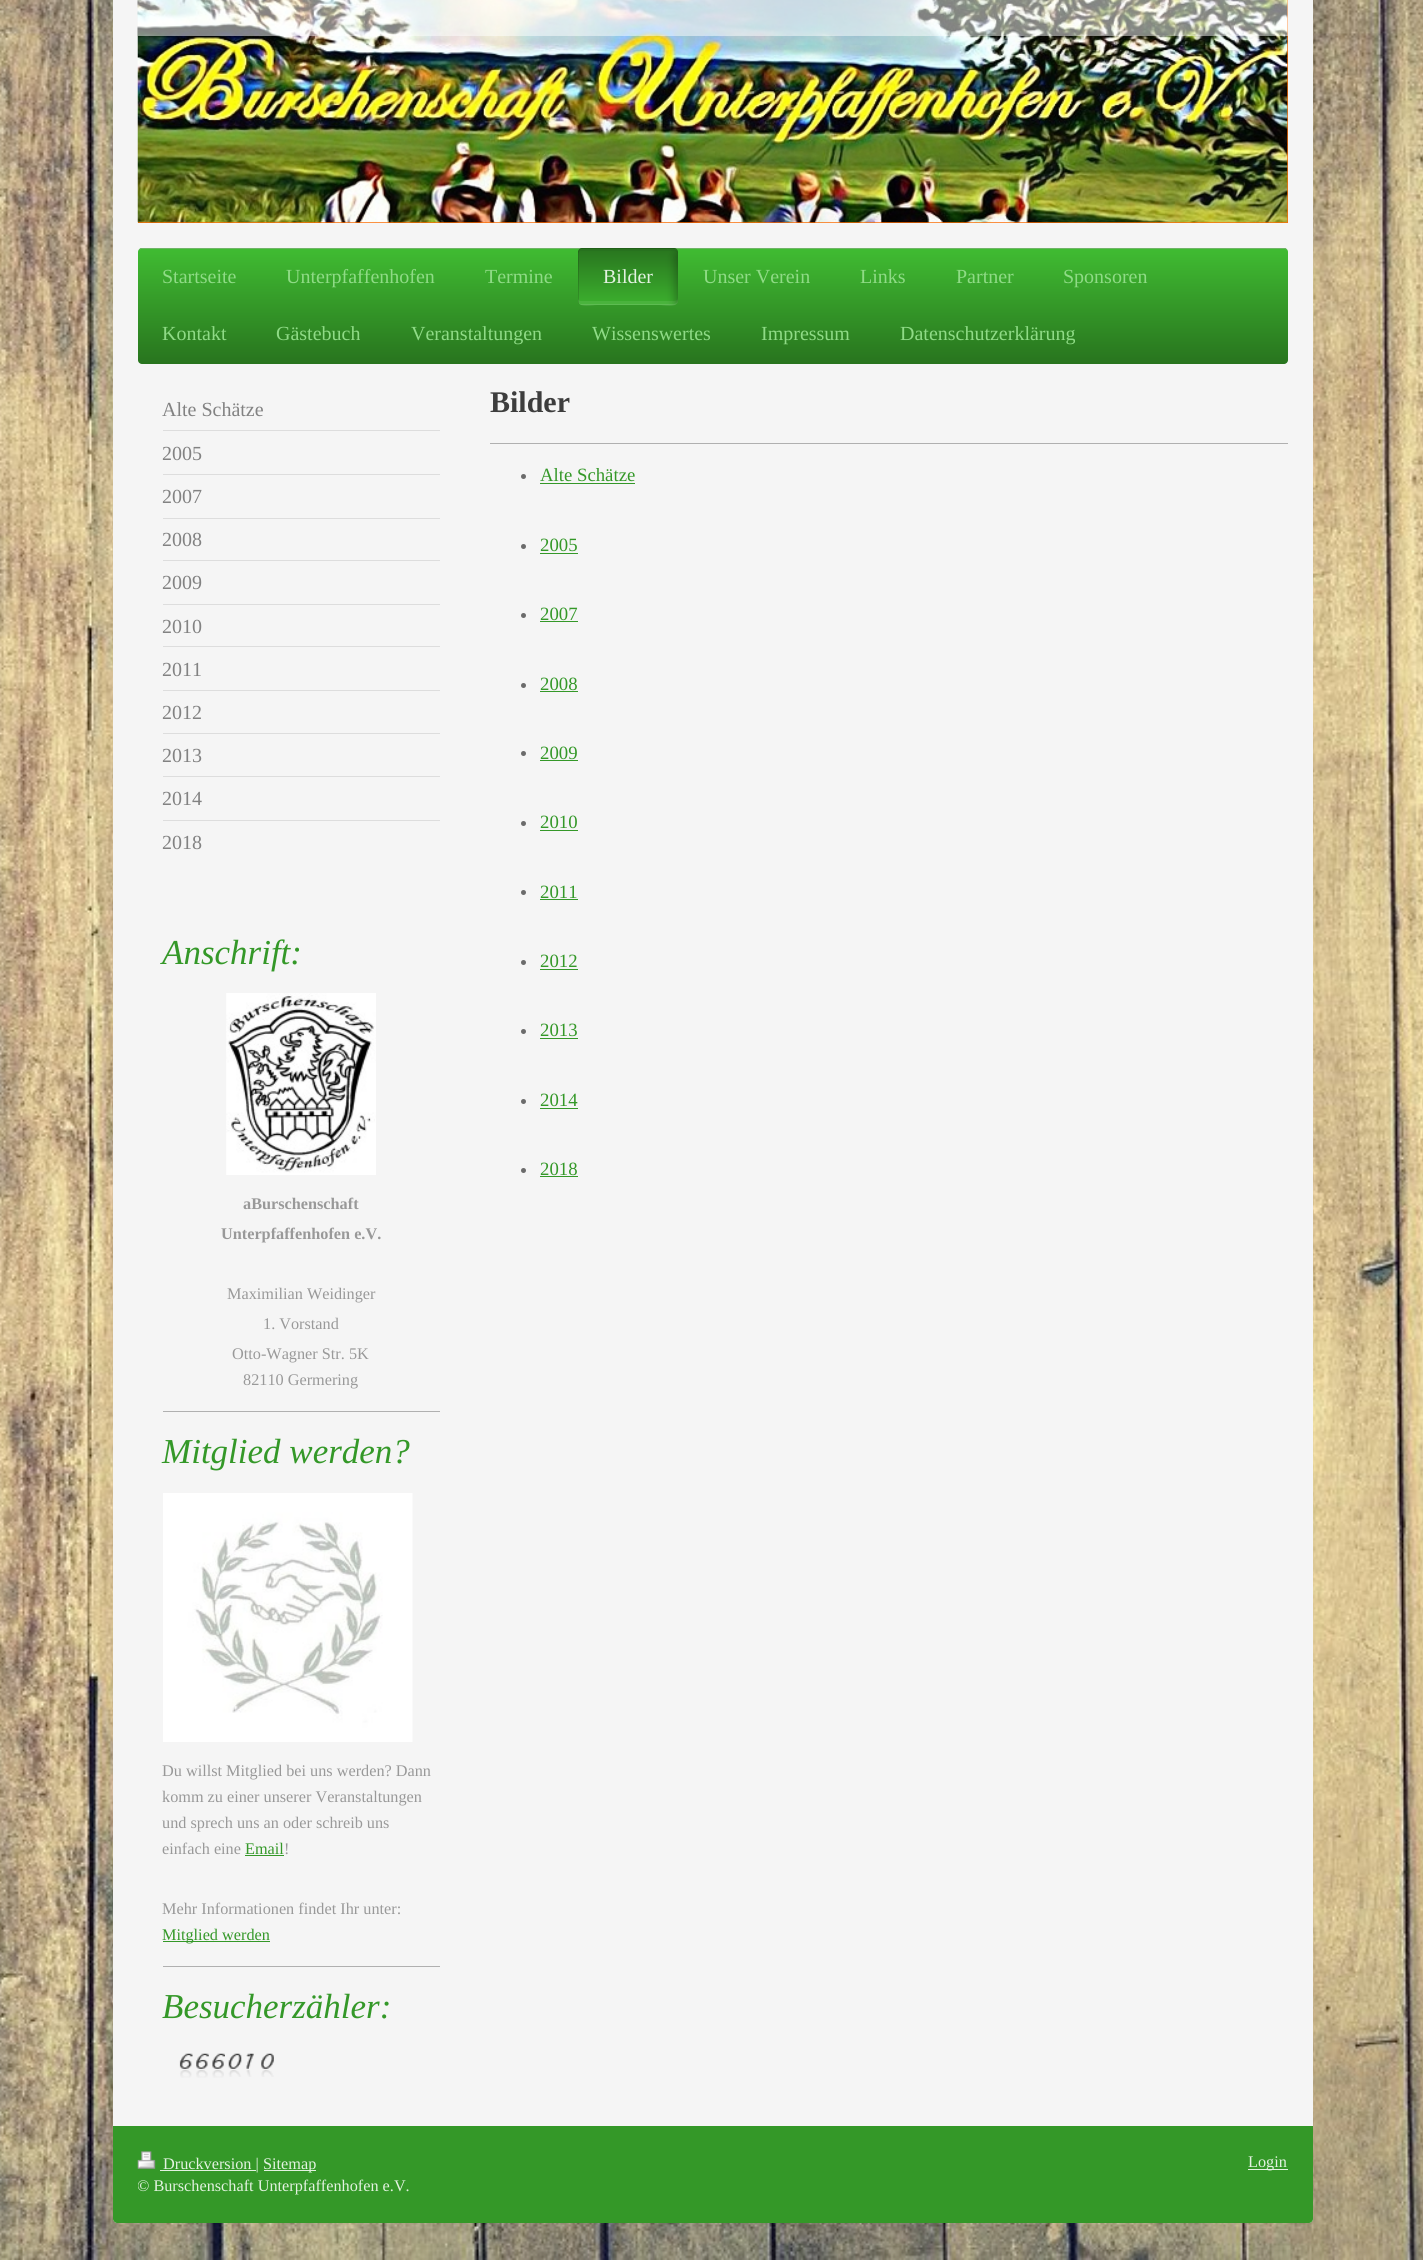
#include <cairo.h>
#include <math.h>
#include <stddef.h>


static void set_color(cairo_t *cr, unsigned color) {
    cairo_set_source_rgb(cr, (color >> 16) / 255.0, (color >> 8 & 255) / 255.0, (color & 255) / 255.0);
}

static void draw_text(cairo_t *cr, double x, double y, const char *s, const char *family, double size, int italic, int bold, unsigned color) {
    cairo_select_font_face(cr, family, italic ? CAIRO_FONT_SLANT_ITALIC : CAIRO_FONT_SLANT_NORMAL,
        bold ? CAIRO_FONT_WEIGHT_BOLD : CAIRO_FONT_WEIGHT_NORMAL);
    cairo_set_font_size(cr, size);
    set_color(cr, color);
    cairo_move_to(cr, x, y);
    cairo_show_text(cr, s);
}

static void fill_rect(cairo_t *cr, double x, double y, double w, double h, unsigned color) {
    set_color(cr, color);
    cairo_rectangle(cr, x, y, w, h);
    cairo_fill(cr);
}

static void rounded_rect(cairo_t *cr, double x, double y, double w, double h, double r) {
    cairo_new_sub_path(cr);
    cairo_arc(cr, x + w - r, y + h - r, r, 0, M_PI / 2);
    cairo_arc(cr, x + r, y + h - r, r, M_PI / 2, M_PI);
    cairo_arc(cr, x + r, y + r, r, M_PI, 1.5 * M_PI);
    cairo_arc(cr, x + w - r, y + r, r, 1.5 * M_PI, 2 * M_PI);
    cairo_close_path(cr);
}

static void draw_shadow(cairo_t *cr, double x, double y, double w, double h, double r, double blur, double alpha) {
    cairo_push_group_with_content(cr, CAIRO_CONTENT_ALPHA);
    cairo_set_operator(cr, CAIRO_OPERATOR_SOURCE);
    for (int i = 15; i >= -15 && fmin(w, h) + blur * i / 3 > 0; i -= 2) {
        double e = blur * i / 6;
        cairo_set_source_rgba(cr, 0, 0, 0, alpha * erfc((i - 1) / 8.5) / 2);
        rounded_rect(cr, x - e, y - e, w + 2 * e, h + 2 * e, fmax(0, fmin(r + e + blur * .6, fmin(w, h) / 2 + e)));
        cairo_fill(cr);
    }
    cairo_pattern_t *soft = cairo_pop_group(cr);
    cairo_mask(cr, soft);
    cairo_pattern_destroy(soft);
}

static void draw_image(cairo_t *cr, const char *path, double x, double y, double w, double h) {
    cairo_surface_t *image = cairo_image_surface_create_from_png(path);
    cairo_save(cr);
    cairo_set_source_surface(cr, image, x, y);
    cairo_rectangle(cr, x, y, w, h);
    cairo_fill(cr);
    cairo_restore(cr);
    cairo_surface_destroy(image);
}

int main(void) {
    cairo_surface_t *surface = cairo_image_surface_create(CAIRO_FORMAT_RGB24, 1423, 2260);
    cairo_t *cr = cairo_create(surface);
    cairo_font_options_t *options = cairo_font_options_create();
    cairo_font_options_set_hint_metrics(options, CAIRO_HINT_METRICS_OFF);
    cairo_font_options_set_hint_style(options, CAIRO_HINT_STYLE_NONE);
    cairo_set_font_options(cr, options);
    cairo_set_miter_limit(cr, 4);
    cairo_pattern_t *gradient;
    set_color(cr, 0xFFFFFF);
    cairo_paint(cr);
    draw_image(cr, "assets/img1.png", 0, 0, 1423, 2260);
    set_color(cr, 0xF5F5F5);
    cairo_new_path(cr);
    cairo_move_to(cr, 113, -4);
    cairo_line_to(cr, 1313, -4);
    cairo_line_to(cr, 1313, 2219);
    cairo_curve_to(cr, 1313, 2221, 1311, 2223, 1309, 2223);
    cairo_line_to(cr, 117, 2223);
    cairo_curve_to(cr, 115, 2223, 113, 2221, 113, 2219);
    cairo_close_path(cr);
    cairo_fill(cr);
    fill_rect(cr, 138, 0, 1150, 223, 0xFB6E05);
    draw_image(cr, "assets/img2.png", 137, 0, 1151, 223);
    cairo_set_source_rgba(cr, 1, 1, 1, 0.5);
    cairo_rectangle(cr, 138, 0, 1150, 36);
    cairo_fill(cr);
    gradient = cairo_pattern_create_linear(138, 248, 138, 364);
    cairo_pattern_add_color_stop_rgba(gradient, 0, 0.251, 0.737, 0.196, 1);
    cairo_pattern_add_color_stop_rgba(gradient, 1, 0.157, 0.455, 0.118, 1);
    cairo_set_source(cr, gradient);
    cairo_pattern_destroy(gradient);
    rounded_rect(cr, 138, 248, 1150, 116, 4);
    cairo_fill(cr);
    set_color(cr, 0x339427);
    cairo_new_path(cr);
    cairo_move_to(cr, 141, 249);
    cairo_line_to(cr, 1284, 249);
    cairo_curve_to(cr, 1286, 249, 1288, 250, 1288, 252);
    cairo_curve_to(cr, 1288, 250, 1286, 248, 1284, 248);
    cairo_line_to(cr, 142, 248);
    cairo_curve_to(cr, 141, 248, 139, 249, 139, 250);
    cairo_close_path(cr);
    cairo_fill(cr);
    cairo_set_source_rgba(cr, 1, 1, 1, 0.3);
    cairo_new_path(cr);
    cairo_move_to(cr, 141, 249);
    cairo_line_to(cr, 1284, 249);
    cairo_curve_to(cr, 1286, 249, 1288, 250, 1288, 252);
    cairo_curve_to(cr, 1288, 250, 1286, 248, 1284, 248);
    cairo_line_to(cr, 142, 248);
    cairo_curve_to(cr, 141, 248, 139, 249, 139, 250);
    cairo_close_path(cr);
    cairo_fill(cr);
    draw_text(cr, 162, 283, "Startseite", "Liberation Serif", 20, 0, 0, 0x8FDB86);
    draw_text(cr, 286, 283, "Unterpfaffenhofen", "Liberation Serif", 20, 0, 0, 0x8FDB86);
    draw_text(cr, 485, 283, "Termine", "Liberation Serif", 20, 0, 0, 0x8FDB86);
    gradient = cairo_pattern_create_linear(578, 305, 578, 248);
    cairo_pattern_add_color_stop_rgba(gradient, 0, 0.235, 0.69, 0.18, 1);
    cairo_pattern_add_color_stop_rgba(gradient, 1, 0.157, 0.455, 0.118, 1);
    cairo_set_source(cr, gradient);
    cairo_pattern_destroy(gradient);
    rounded_rect(cr, 578, 248, 100, 57, 4);
    cairo_fill(cr);
    cairo_set_source_rgba(cr, 0, 0, 0, 0.15);
    cairo_new_path(cr);
    cairo_move_to(cr, 582, 249);
    cairo_line_to(cr, 677, 249);
    cairo_curve_to(cr, 676, 249, 675, 248, 674, 248);
    cairo_line_to(cr, 582, 248);
    cairo_curve_to(cr, 580, 248, 578, 250, 578, 252);
    cairo_line_to(cr, 578, 301);
    cairo_curve_to(cr, 578, 302, 578, 303, 579, 304);
    cairo_line_to(cr, 579, 260);
    cairo_curve_to(cr, 579, 258, 577, 249, 582, 249);
    cairo_close_path(cr);
    cairo_fill(cr);
    cairo_set_source_rgba(cr, 0, 0, 0, 0.04);
    cairo_new_path(cr);
    cairo_move_to(cr, 581, 251);
    cairo_line_to(cr, 674, 251);
    cairo_curve_to(cr, 676, 251, 678, 253, 678, 255);
    cairo_line_to(cr, 678, 252);
    cairo_curve_to(cr, 678, 250, 676, 248, 674, 248);
    cairo_line_to(cr, 582, 248);
    cairo_curve_to(cr, 580, 248, 578, 250, 578, 252);
    cairo_line_to(cr, 578, 255);
    cairo_curve_to(cr, 578, 253, 579, 251, 581, 251);
    cairo_close_path(cr);
    cairo_fill(cr);
    cairo_set_source_rgba(cr, 1, 1, 1, 0.08);
    cairo_new_path(cr);
    cairo_move_to(cr, 578, 298);
    cairo_line_to(cr, 578, 301);
    cairo_curve_to(cr, 578, 303, 580, 305, 582, 305);
    cairo_line_to(cr, 674, 305);
    cairo_curve_to(cr, 676, 305, 678, 303, 678, 301);
    cairo_line_to(cr, 678, 298);
    cairo_curve_to(cr, 678, 300, 676, 301, 674, 301);
    cairo_line_to(cr, 581, 301);
    cairo_curve_to(cr, 579, 301, 578, 300, 578, 298);
    cairo_close_path(cr);
    cairo_fill(cr);
    cairo_set_source_rgba(cr, 1, 1, 1, 0.1);
    cairo_new_path(cr);
    cairo_move_to(cr, 578, 300);
    cairo_curve_to(cr, 578, 309, 593, 305, 597, 305);
    cairo_line_to(cr, 659, 305);
    cairo_curve_to(cr, 663, 305, 678, 309, 678, 300);
    cairo_curve_to(cr, 678, 302, 676, 304, 674, 304);
    cairo_line_to(cr, 581, 304);
    cairo_curve_to(cr, 579, 304, 578, 302, 578, 300);
    cairo_close_path(cr);
    cairo_fill(cr);
    draw_text(cr, 603, 283, "Bilder", "Liberation Serif", 20, 0, 0, 0xE3F2E1);
    cairo_save(cr);
    rounded_rect(cr, 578, 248, 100, 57, 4);
    cairo_clip(cr);
    set_color(cr, 0x000000);
    draw_shadow(cr, 675, 250, 20, 58, 10, 4.5, 0.3);
    cairo_restore(cr);
    draw_text(cr, 703, 283, "Unser Verein", "Liberation Serif", 20, 0, 0, 0x8FDB86);
    draw_text(cr, 860, 283, "Links", "Liberation Serif", 20, 0, 0, 0x8FDB86);
    draw_text(cr, 956, 283, "Partner", "Liberation Serif", 20, 0, 0, 0x8FDB86);
    draw_text(cr, 1063, 283, "Sponsoren", "Liberation Serif", 20, 0, 0, 0x8FDB86);
    draw_text(cr, 162, 340, "Kontakt", "Liberation Serif", 20, 0, 0, 0x8FDB86);
    draw_text(cr, 276, 340, "Gästebuch", "Liberation Serif", 20, 0, 0, 0x8FDB86);
    draw_text(cr, 411, 340, "Veranstaltungen", "Liberation Serif", 20, 0, 0, 0x8FDB86);
    draw_text(cr, 592, 340, "Wissenswertes", "Liberation Serif", 20, 0, 0, 0x8FDB86);
    draw_text(cr, 761, 340, "Impressum", "Liberation Serif", 20, 0, 0, 0x8FDB86);
    draw_text(cr, 900, 340, "Datenschutzerklärung", "Liberation Serif", 20, 0, 0, 0x8FDB86);
    fill_rect(cr, 163, 430, 277, 1, 0xDDDDDD);
    draw_text(cr, 162, 416, "Alte Schätze", "Liberation Serif", 20, 0, 0, 0x828282);
    fill_rect(cr, 163, 474, 277, 1, 0xDDDDDD);
    draw_text(cr, 162, 460, "2005", "Liberation Serif", 20, 0, 0, 0x828282);
    fill_rect(cr, 163, 518, 277, 1, 0xDDDDDD);
    draw_text(cr, 162, 503, "2007", "Liberation Serif", 20, 0, 0, 0x828282);
    fill_rect(cr, 163, 560, 277, 1, 0xDDDDDD);
    draw_text(cr, 162, 546, "2008", "Liberation Serif", 20, 0, 0, 0x828282);
    fill_rect(cr, 163, 604, 277, 1, 0xDDDDDD);
    draw_text(cr, 162, 589, "2009", "Liberation Serif", 20, 0, 0, 0x828282);
    fill_rect(cr, 163, 646, 277, 1, 0xDDDDDD);
    draw_text(cr, 162, 633, "2010", "Liberation Serif", 20, 0, 0, 0x828282);
    fill_rect(cr, 163, 690, 277, 1, 0xDDDDDD);
    draw_text(cr, 162, 676, "2011", "Liberation Serif", 20, 0, 0, 0x828282);
    fill_rect(cr, 163, 733, 277, 1, 0xDDDDDD);
    draw_text(cr, 162, 719, "2012", "Liberation Serif", 20, 0, 0, 0x828282);
    fill_rect(cr, 163, 776, 277, 1, 0xDDDDDD);
    draw_text(cr, 162, 762, "2013", "Liberation Serif", 20, 0, 0, 0x828282);
    fill_rect(cr, 163, 820, 277, 1, 0xDDDDDD);
    draw_text(cr, 162, 805, "2014", "Liberation Serif", 20, 0, 0, 0x828282);
    draw_text(cr, 162, 849, "2018", "Liberation Serif", 20, 0, 0, 0x828282);
    draw_text(cr, 162, 964, "Anschrift:", "Liberation Serif", 35, 1, 0, 0x349828);
    draw_image(cr, "assets/img3.png", 226, 993, 150, 182);
    draw_text(cr, 243, 1209, "aBurschenschaft", "Liberation Serif", 16.25, 0, 1, 0x999999);
    draw_text(cr, 221, 1239, "Unterpfaffenhofen e.V.", "Liberation Serif", 16.25, 0, 1, 0x999999);
    draw_text(cr, 227, 1299, "Maximilian Weidinger", "Liberation Serif", 16.25, 0, 0, 0x999999);
    draw_text(cr, 263, 1329, "1. Vorstand", "Liberation Serif", 16.25, 0, 0, 0x999999);
    draw_text(cr, 232, 1359, "Otto-Wagner Str. 5K", "Liberation Serif", 16.25, 0, 0, 0x999999);
    draw_text(cr, 243, 1385, "82110 Germering", "Liberation Serif", 16.25, 0, 0, 0x999999);
    fill_rect(cr, 163, 1411, 277, 1, 0xB0B0B0);
    draw_text(cr, 162, 1463, "Mitglied werden?", "Liberation Serif", 35, 1, 0, 0x349828);
    draw_image(cr, "assets/img4.png", 163, 1493, 250, 249);
    draw_text(cr, 162, 1776, "Du willst Mitglied bei uns werden? Dann", "Liberation Serif", 16.25, 0, 0, 0x999999);
    draw_text(cr, 162, 1802, "komm zu einer unserer Veranstaltungen", "Liberation Serif", 16.25, 0, 0, 0x999999);
    draw_text(cr, 162, 1828, "und sprech uns an oder schreib uns", "Liberation Serif", 16.25, 0, 0, 0x999999);
    draw_text(cr, 162, 1854, "einfach eine", "Liberation Serif", 16.25, 0, 0, 0x999999);
    draw_text(cr, 245, 1854, "Email", "Liberation Serif", 16.25, 0, 0, 0x349828);
    fill_rect(cr, 245, 1855, 39, 1, 0x349828);
    draw_text(cr, 284, 1854, "!", "Liberation Serif", 16.25, 0, 0, 0x999999);
    draw_text(cr, 162, 1914, "Mehr Informationen findet Ihr unter:", "Liberation Serif", 16.25, 0, 0, 0x999999);
    fill_rect(cr, 163, 1941, 107, 1, 0x349828);
    draw_text(cr, 162, 1940, "Mitglied werden", "Liberation Serif", 16.25, 0, 0, 0x349828);
    fill_rect(cr, 163, 1966, 277, 1, 0xB0B0B0);
    draw_text(cr, 162, 2018, "Besucherzähler:", "Liberation Serif", 35, 1, 0, 0x349828);
    draw_image(cr, "assets/img5.png", 179, 2053, 14, 25);
    draw_image(cr, "assets/img6.png", 196, 2053, 13, 25);
    draw_image(cr, "assets/img7.png", 212, 2053, 13, 25);
    draw_image(cr, "assets/img8.png", 228, 2053, 14, 24);
    draw_image(cr, "assets/img9.png", 246, 2053, 8, 24);
    draw_image(cr, "assets/img10.png", 261, 2053, 13, 24);
    draw_text(cr, 490, 412, "Bilder", "Liberation Serif", 30, 0, 1, 0x3D3D3D);
    fill_rect(cr, 490, 443, 798, 1, 0xB0B0B0);
    set_color(cr, 0x6B6B6B);
    cairo_new_path(cr);
    cairo_arc(cr, 523.5, 476.5, 2.5, 0, 2 * M_PI);
    cairo_fill(cr);
    draw_text(cr, 540, 481, "Alte Schätze", "Liberation Serif", 18.75, 0, 0, 0x349828);
    fill_rect(cr, 540, 483, 95, 1, 0x349828);
    set_color(cr, 0x6B6B6B);
    cairo_new_path(cr);
    cairo_arc(cr, 523.5, 546.5, 2.5, 0, 2 * M_PI);
    cairo_fill(cr);
    draw_text(cr, 540, 551, "2005", "Liberation Serif", 18.75, 0, 0, 0x349828);
    fill_rect(cr, 540, 553, 38, 1, 0x349828);
    set_color(cr, 0x6B6B6B);
    cairo_new_path(cr);
    cairo_arc(cr, 523.5, 615.5, 2.5, 0, 2 * M_PI);
    cairo_fill(cr);
    draw_text(cr, 540, 620, "2007", "Liberation Serif", 18.75, 0, 0, 0x349828);
    fill_rect(cr, 540, 621, 38, 1, 0x349828);
    set_color(cr, 0x6B6B6B);
    cairo_new_path(cr);
    cairo_arc(cr, 523.5, 685.5, 2.5, 0, 2 * M_PI);
    cairo_fill(cr);
    draw_text(cr, 540, 690, "2008", "Liberation Serif", 18.75, 0, 0, 0x349828);
    fill_rect(cr, 540, 691, 38, 1, 0x349828);
    set_color(cr, 0x6B6B6B);
    cairo_new_path(cr);
    cairo_arc(cr, 523.5, 753.5, 2.5, 0, 2 * M_PI);
    cairo_fill(cr);
    draw_text(cr, 540, 759, "2009", "Liberation Serif", 18.75, 0, 0, 0x349828);
    fill_rect(cr, 540, 760, 38, 1, 0x349828);
    set_color(cr, 0x6B6B6B);
    cairo_new_path(cr);
    cairo_arc(cr, 523.5, 823.5, 2.5, 0, 2 * M_PI);
    cairo_fill(cr);
    draw_text(cr, 540, 828, "2010", "Liberation Serif", 18.75, 0, 0, 0x349828);
    fill_rect(cr, 540, 830, 38, 1, 0x349828);
    set_color(cr, 0x6B6B6B);
    cairo_new_path(cr);
    cairo_arc(cr, 523.5, 892.5, 2.5, 0, 2 * M_PI);
    cairo_fill(cr);
    draw_text(cr, 540, 898, "2011", "Liberation Serif", 18.75, 0, 0, 0x349828);
    fill_rect(cr, 540, 899, 38, 1, 0x349828);
    set_color(cr, 0x6B6B6B);
    cairo_new_path(cr);
    cairo_arc(cr, 523.5, 962.5, 2.5, 0, 2 * M_PI);
    cairo_fill(cr);
    draw_text(cr, 540, 967, "2012", "Liberation Serif", 18.75, 0, 0, 0x349828);
    fill_rect(cr, 540, 969, 38, 1, 0x349828);
    set_color(cr, 0x6B6B6B);
    cairo_new_path(cr);
    cairo_arc(cr, 523.5, 1031.5, 2.5, 0, 2 * M_PI);
    cairo_fill(cr);
    draw_text(cr, 540, 1036, "2013", "Liberation Serif", 18.75, 0, 0, 0x349828);
    fill_rect(cr, 540, 1038, 38, 1, 0x349828);
    set_color(cr, 0x6B6B6B);
    cairo_new_path(cr);
    cairo_arc(cr, 523.5, 1101.5, 2.5, 0, 2 * M_PI);
    cairo_fill(cr);
    draw_text(cr, 540, 1106, "2014", "Liberation Serif", 18.75, 0, 0, 0x349828);
    fill_rect(cr, 540, 1108, 38, 1, 0x349828);
    set_color(cr, 0x6B6B6B);
    cairo_new_path(cr);
    cairo_arc(cr, 523.5, 1170.5, 2.5, 0, 2 * M_PI);
    cairo_fill(cr);
    draw_text(cr, 540, 1175, "2018", "Liberation Serif", 18.75, 0, 0, 0x349828);
    fill_rect(cr, 540, 1176, 38, 1, 0x349828);
    cairo_new_path(cr);
    cairo_move_to(cr, 113, 2126);
    cairo_line_to(cr, 1313, 2126);
    cairo_line_to(cr, 1313, 2219);
    cairo_curve_to(cr, 1313, 2221, 1311, 2223, 1309, 2223);
    cairo_line_to(cr, 117, 2223);
    cairo_curve_to(cr, 115, 2223, 113, 2221, 113, 2219);
    cairo_close_path(cr);
    cairo_fill(cr);
    draw_image(cr, "assets/img11.png", 137, 2151, 19, 18);
    fill_rect(cr, 160, 2170, 96, 1, 0xE3F2E1);
    draw_text(cr, 163, 2169, "Druckversion |", "Liberation Serif", 16.25, 0, 0, 0xE3F2E1);
    fill_rect(cr, 264, 2170, 52, 1, 0xE3F2E1);
    draw_text(cr, 263, 2169, "Sitemap", "Liberation Serif", 16.25, 0, 0, 0xE3F2E1);
    cairo_save(cr);
    cairo_rectangle(cr, 138, 2151, 1150, 47);
    cairo_clip(cr);
    draw_text(cr, 137, 2191, "© Burschenschaft Unterpfaffenhofen e.V.", "Liberation Serif", 16.25, 0, 0, 0xE3F2E1);
    cairo_restore(cr);
    fill_rect(cr, 1248, 2169, 40, 1, 0xE3F2E1);
    draw_text(cr, 1248, 2167, "Login", "Liberation Serif", 16.25, 0, 0, 0xE3F2E1);
    cairo_surface_write_to_png(surface, "output.png");
    cairo_font_options_destroy(options);
    cairo_destroy(cr);
    cairo_surface_destroy(surface);
    return 0;
}
